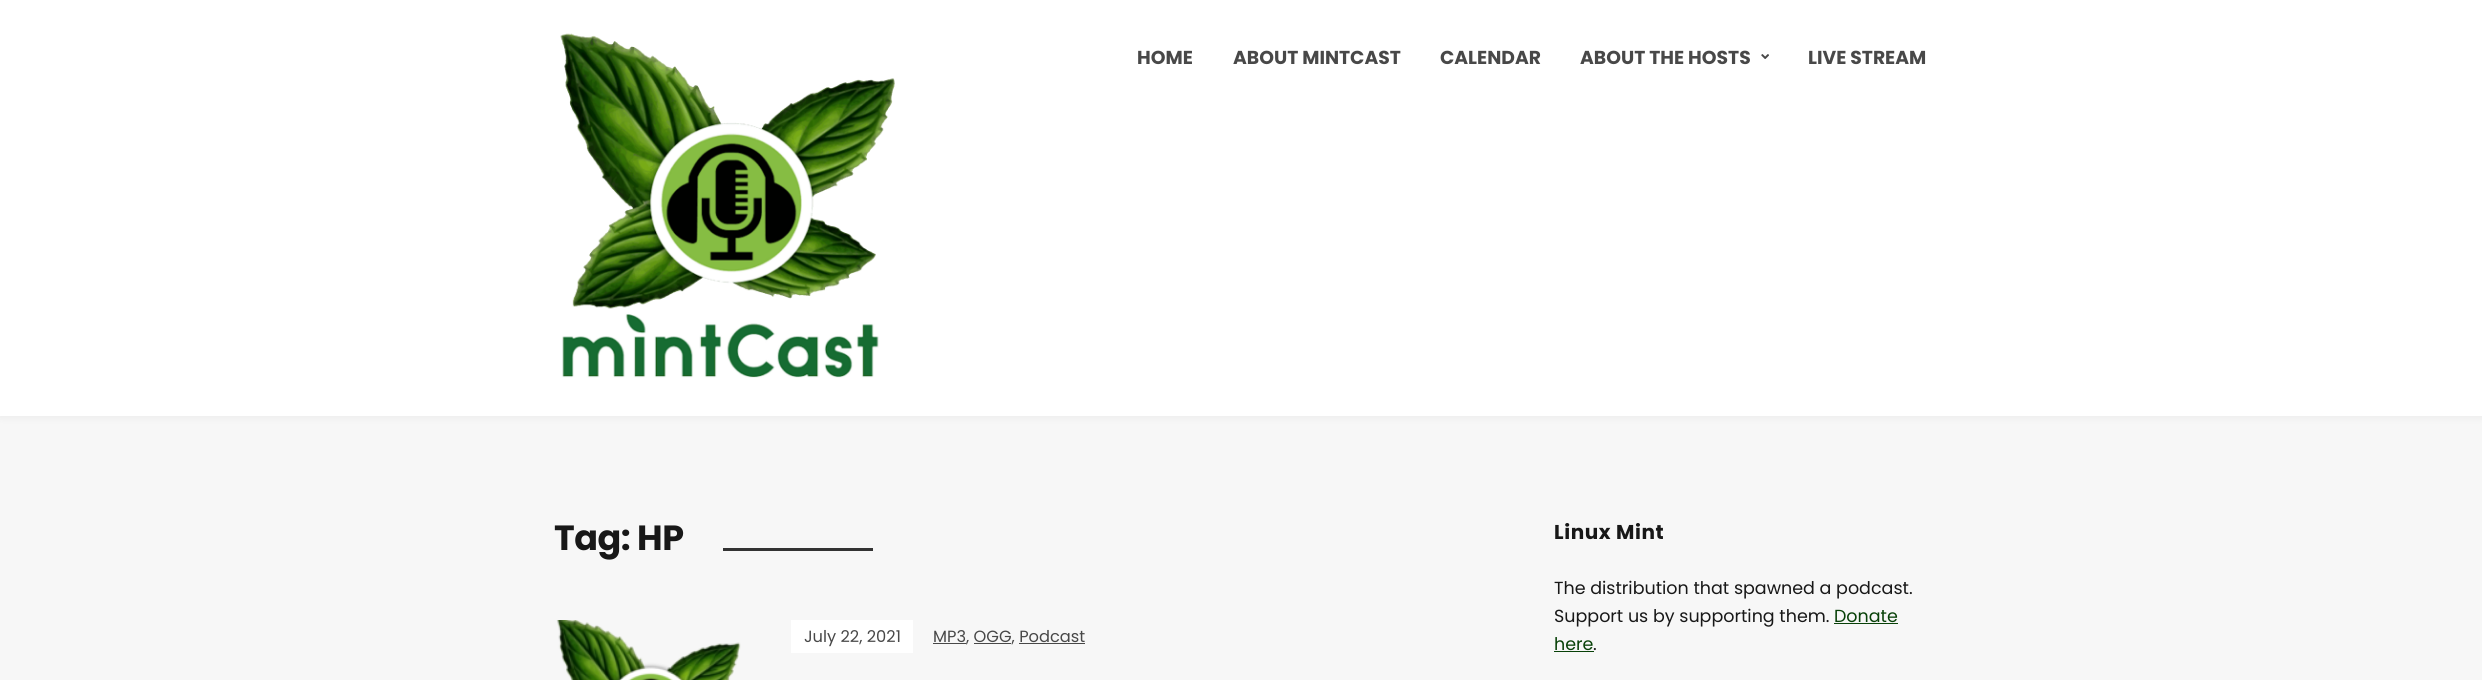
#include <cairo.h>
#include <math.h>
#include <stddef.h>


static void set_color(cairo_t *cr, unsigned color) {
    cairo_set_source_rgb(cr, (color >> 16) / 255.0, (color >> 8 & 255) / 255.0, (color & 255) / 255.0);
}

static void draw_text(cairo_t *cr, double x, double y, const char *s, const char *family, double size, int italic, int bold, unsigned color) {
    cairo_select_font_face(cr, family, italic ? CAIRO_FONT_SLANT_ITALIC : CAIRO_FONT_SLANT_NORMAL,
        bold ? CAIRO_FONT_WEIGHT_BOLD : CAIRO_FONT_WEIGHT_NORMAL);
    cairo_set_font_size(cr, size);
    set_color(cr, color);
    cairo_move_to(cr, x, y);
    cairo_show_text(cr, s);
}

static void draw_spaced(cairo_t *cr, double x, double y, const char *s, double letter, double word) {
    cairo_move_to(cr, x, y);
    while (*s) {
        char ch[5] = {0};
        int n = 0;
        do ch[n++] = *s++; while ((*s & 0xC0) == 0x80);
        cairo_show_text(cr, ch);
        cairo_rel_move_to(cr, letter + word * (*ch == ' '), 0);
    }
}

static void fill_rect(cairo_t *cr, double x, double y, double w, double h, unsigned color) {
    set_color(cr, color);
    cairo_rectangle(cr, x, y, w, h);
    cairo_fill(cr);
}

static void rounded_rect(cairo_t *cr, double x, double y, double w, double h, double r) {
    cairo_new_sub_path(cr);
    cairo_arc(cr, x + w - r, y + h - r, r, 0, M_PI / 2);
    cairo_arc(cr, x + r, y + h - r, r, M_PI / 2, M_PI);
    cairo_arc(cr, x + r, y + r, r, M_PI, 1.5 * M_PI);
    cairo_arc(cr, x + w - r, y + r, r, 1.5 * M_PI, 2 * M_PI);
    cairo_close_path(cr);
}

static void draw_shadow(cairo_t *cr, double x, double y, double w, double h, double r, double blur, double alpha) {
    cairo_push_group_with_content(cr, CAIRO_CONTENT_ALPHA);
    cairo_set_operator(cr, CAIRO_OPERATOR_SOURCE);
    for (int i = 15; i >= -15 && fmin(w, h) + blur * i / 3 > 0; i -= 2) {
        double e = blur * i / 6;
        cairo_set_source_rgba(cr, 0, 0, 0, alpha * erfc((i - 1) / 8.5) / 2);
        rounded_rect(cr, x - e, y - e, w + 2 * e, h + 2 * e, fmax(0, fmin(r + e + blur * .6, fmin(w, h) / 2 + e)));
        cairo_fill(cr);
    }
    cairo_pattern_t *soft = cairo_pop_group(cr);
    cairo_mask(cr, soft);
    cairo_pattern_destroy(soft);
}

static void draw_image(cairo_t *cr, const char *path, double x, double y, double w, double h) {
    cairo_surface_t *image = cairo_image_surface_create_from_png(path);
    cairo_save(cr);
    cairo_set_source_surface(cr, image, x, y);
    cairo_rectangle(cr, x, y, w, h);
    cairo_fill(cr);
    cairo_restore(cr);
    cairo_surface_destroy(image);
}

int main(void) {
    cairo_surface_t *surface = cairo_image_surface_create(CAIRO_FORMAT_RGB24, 2482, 680);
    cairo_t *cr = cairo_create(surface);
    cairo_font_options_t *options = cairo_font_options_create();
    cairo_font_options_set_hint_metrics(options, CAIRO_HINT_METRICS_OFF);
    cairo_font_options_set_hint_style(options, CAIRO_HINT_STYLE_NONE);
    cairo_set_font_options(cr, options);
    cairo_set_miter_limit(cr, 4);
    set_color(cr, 0xF7F7F7);
    cairo_paint(cr);
    set_color(cr, 0x000000);
    draw_shadow(cr, 0, 0, 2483, 416, 0, 5, 0.07);
    fill_rect(cr, 0, 0, 2482, 416, 0xFFFFFF);
    draw_image(cr, "assets/img1.png", 560, 33, 335, 345);
    draw_text(cr, 1137, 64, "HOME", "Poppins", 18.75, 0, 1, 0x484848);
    draw_text(cr, 1233, 64, "ABOUT MINTCAST", "Poppins", 18.75, 0, 1, 0x484848);
    draw_text(cr, 1440, 64, "CALENDAR", "Poppins", 18.75, 0, 1, 0x484848);
    draw_text(cr, 1580, 64, "ABOUT THE HOSTS", "Poppins", 18.75, 0, 1, 0x484848);
    draw_image(cr, "assets/img2.png", 1761, 54, 8, 5);
    draw_text(cr, 1808, 64, "LIVE STREAM", "Poppins", 18.75, 0, 1, 0x484848);
    cairo_set_font_size(cr, 35);
    set_color(cr, 0x181818);
    draw_spaced(cr, 554, 550, "Tag: HP", -0.5, 0);
    fill_rect(cr, 723, 548, 150, 3, 0x333333);
    draw_image(cr, "assets/img3.png", 556, 620, 185, 60);
    fill_rect(cr, 791, 620, 122, 33, 0xFFFFFF);
    draw_text(cr, 804, 642, "July 22, 2021", "Poppins", 16.25, 0, 0, 0x484848);
    fill_rect(cr, 933, 643, 33, 1, 0x484848);
    draw_text(cr, 933, 642, "MP3, OGG, Podcast", "Poppins", 16.25, 0, 0, 0x484848);
    fill_rect(cr, 974, 643, 37, 1, 0x484848);
    fill_rect(cr, 1019, 643, 66, 1, 0x484848);
    cairo_select_font_face(cr, "Poppins", CAIRO_FONT_SLANT_NORMAL, CAIRO_FONT_WEIGHT_BOLD);
    cairo_set_font_size(cr, 20);
    set_color(cr, 0x181818);
    draw_spaced(cr, 1554, 539, "Linux Mint", 0.6, 0);
    draw_text(cr, 1554, 594, "The distribution that spawned a podcast.", "Poppins", 17.5, 0, 0, 0x181818);
    draw_text(cr, 1554, 622, "Support us by supporting them.", "Poppins", 17.5, 0, 0, 0x181818);
    draw_text(cr, 1834, 622, "Donate", "Poppins", 17.5, 0, 0, 0x084108);
    fill_rect(cr, 1834, 623, 64, 1, 0x084108);
    draw_text(cr, 1554, 650, "here", "Poppins", 17.5, 0, 0, 0x084108);
    fill_rect(cr, 1554, 651, 40, 1, 0x084108);
    draw_text(cr, 1593, 650, ".", "Poppins", 17.5, 0, 0, 0x181818);
    cairo_surface_write_to_png(surface, "output.png");
    cairo_font_options_destroy(options);
    cairo_destroy(cr);
    cairo_surface_destroy(surface);
    return 0;
}
